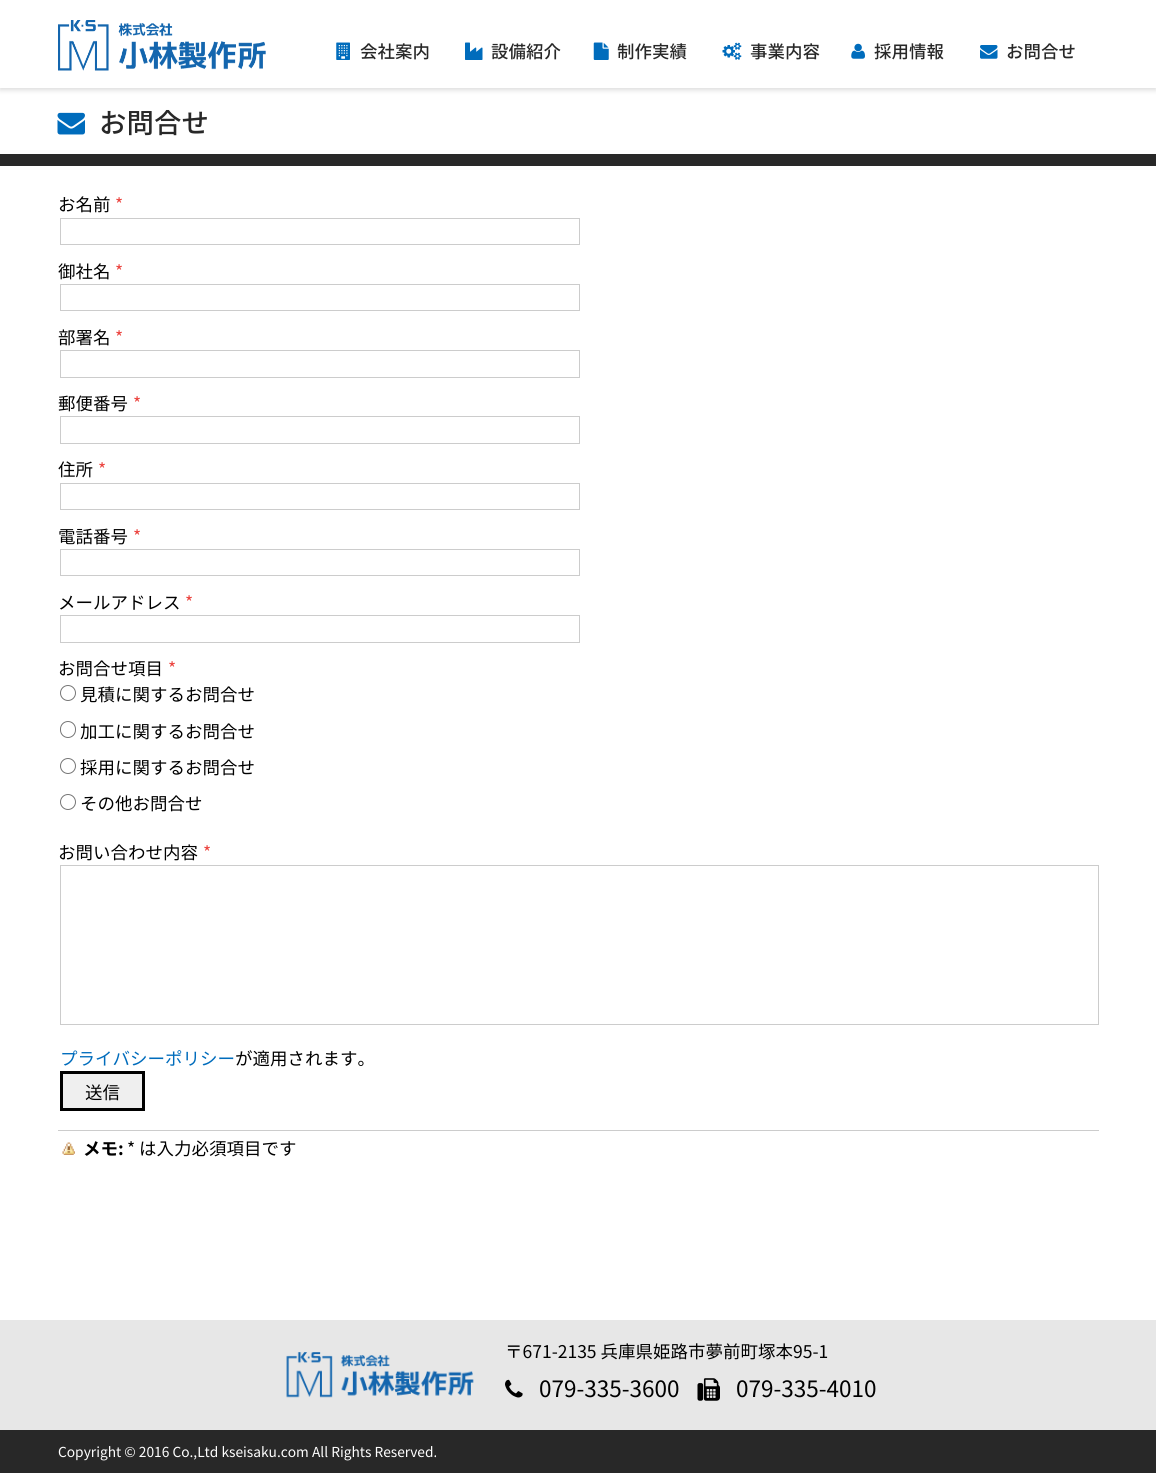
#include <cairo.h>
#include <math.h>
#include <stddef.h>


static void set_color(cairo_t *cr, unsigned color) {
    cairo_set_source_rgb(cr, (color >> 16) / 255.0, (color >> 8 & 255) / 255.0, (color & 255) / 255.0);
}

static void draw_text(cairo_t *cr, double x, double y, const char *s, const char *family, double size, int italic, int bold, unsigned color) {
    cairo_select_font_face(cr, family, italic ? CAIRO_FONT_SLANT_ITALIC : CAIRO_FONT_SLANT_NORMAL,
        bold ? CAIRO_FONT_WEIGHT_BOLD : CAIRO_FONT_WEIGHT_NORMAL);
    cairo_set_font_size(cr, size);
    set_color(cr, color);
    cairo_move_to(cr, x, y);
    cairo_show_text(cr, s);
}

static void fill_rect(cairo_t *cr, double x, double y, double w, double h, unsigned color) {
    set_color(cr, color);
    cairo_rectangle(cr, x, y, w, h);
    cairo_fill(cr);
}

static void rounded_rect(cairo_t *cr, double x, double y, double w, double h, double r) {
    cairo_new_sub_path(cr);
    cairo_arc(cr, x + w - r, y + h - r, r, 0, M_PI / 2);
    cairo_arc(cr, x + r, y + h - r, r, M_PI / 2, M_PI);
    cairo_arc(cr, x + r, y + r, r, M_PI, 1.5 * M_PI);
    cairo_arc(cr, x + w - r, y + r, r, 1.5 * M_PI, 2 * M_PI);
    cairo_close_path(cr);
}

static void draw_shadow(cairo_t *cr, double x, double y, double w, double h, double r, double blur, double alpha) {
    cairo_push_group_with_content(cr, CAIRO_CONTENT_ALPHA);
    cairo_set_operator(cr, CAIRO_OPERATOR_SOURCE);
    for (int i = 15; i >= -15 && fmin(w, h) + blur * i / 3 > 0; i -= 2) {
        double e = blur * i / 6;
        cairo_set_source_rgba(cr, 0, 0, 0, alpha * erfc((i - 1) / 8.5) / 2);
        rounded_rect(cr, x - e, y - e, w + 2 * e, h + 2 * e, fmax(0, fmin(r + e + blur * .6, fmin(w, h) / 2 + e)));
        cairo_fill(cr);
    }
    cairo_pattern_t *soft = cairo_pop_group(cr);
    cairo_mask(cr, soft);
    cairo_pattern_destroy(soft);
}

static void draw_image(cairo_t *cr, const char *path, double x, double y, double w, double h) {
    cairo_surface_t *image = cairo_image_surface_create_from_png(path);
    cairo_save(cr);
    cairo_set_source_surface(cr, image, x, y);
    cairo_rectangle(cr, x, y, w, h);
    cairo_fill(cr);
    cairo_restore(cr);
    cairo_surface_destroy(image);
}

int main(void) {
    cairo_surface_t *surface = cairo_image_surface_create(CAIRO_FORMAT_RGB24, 1156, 1473);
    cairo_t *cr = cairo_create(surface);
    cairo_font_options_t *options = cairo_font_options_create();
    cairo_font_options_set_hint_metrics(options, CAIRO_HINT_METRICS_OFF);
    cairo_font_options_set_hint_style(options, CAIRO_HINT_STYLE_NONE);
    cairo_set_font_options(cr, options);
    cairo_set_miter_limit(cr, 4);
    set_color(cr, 0xFFFFFF);
    cairo_paint(cr);
    set_color(cr, 0xDBDBDB);
    draw_shadow(cr, 0, 3, 1156, 87, 0, 2.5, 1);
    fill_rect(cr, 0, 0, 1156, 88, 0xFFFFFF);
    draw_image(cr, "assets/img1.png", 58, 20, 208, 51);
    draw_image(cr, "assets/img2.png", 336, 42, 14, 18);
    draw_text(cr, 360, 58, "会社案内", "Noto Sans JP Medium", 17.5, 0, 0, 0x282828);
    draw_image(cr, "assets/img3.png", 465, 42, 18, 18);
    draw_text(cr, 491, 58, "設備紹介", "Noto Sans JP Medium", 17.5, 0, 0, 0x282828);
    draw_image(cr, "assets/img4.png", 593, 42, 16, 18);
    draw_text(cr, 617, 58, "制作実績", "Noto Sans JP Medium", 17.5, 0, 0, 0x282828);
    draw_image(cr, "assets/img5.png", 722, 42, 20, 18);
    draw_text(cr, 750, 58, "事業内容", "Noto Sans JP Medium", 17.5, 0, 0, 0x282828);
    draw_image(cr, "assets/img6.png", 851, 43, 14, 16);
    draw_text(cr, 874, 58, "採用情報", "Noto Sans JP Medium", 17.5, 0, 0, 0x282828);
    draw_image(cr, "assets/img7.png", 980, 45, 18, 14);
    draw_text(cr, 1006, 58, "お問合せ", "Noto Sans JP Medium", 17.5, 0, 0, 0x282828);
    fill_rect(cr, 0, 154, 1156, 12, 0x282828);
    draw_image(cr, "assets/img8.png", 57, 112, 28, 23);
    draw_text(cr, 99, 133, "お問合せ", "Noto Sans JP Medium", 27.5, 0, 0, 0x282828);
    draw_text(cr, 58, 211, "お名前", "Noto Sans JP", 17.5, 0, 0, 0x000000);
    draw_text(cr, 115, 211, "*", "Noto Sans JP", 17.5, 0, 0, 0xEB433E);
    cairo_rectangle(cr, 60.5, 218.5, 519, 26);
    set_color(cr, 0xCCCCCC);
    cairo_set_line_width(cr, 1);
    cairo_stroke(cr);
    draw_text(cr, 58, 278, "御社名", "Noto Sans JP", 17.5, 0, 0, 0x000000);
    draw_text(cr, 115, 278, "*", "Noto Sans JP", 17.5, 0, 0, 0xEB433E);
    cairo_rectangle(cr, 60.5, 284.5, 519, 26);
    set_color(cr, 0xCCCCCC);
    cairo_stroke(cr);
    draw_text(cr, 58, 344, "部署名", "Noto Sans JP", 17.5, 0, 0, 0x000000);
    draw_text(cr, 115, 344, "*", "Noto Sans JP", 17.5, 0, 0, 0xEB433E);
    cairo_rectangle(cr, 60.5, 350.5, 519, 27);
    set_color(cr, 0xCCCCCC);
    cairo_stroke(cr);
    draw_text(cr, 58, 410, "郵便番号", "Noto Sans JP", 17.5, 0, 0, 0x000000);
    draw_text(cr, 133, 410, "*", "Noto Sans JP", 17.5, 0, 0, 0xEB433E);
    cairo_rectangle(cr, 60.5, 416.5, 519, 27);
    set_color(cr, 0xCCCCCC);
    cairo_stroke(cr);
    draw_text(cr, 58, 476, "住所", "Noto Sans JP", 17.5, 0, 0, 0x000000);
    draw_text(cr, 98, 476, "*", "Noto Sans JP", 17.5, 0, 0, 0xEB433E);
    cairo_rectangle(cr, 60.5, 483.5, 519, 26);
    set_color(cr, 0xCCCCCC);
    cairo_stroke(cr);
    draw_text(cr, 58, 543, "電話番号", "Noto Sans JP", 17.5, 0, 0, 0x000000);
    draw_text(cr, 133, 543, "*", "Noto Sans JP", 17.5, 0, 0, 0xEB433E);
    cairo_rectangle(cr, 60.5, 549.5, 519, 26);
    set_color(cr, 0xCCCCCC);
    cairo_stroke(cr);
    draw_text(cr, 58, 609, "メールアドレス", "Noto Sans JP", 17.5, 0, 0, 0x000000);
    draw_text(cr, 185, 609, "*", "Noto Sans JP", 17.5, 0, 0, 0xEB433E);
    cairo_rectangle(cr, 60.5, 615.5, 519, 27);
    set_color(cr, 0xCCCCCC);
    cairo_stroke(cr);
    draw_text(cr, 58, 675, "お問合せ項目", "Noto Sans JP", 17.5, 0, 0, 0x000000);
    draw_text(cr, 168, 675, "*", "Noto Sans JP", 17.5, 0, 0, 0xEB433E);
    cairo_new_path(cr);
    cairo_arc(cr, 68, 693, 7.5, 0, 2 * M_PI);
    set_color(cr, 0x767676);
    cairo_stroke(cr);
    draw_text(cr, 80, 701, "見積に関するお問合せ", "Noto Sans JP", 17.5, 0, 0, 0x000000);
    rounded_rect(cr, 60.5, 721.5, 15, 16, 7.5);
    set_color(cr, 0x767676);
    cairo_stroke(cr);
    draw_text(cr, 80, 738, "加工に関するお問合せ", "Noto Sans JP", 17.5, 0, 0, 0x000000);
    cairo_new_path(cr);
    cairo_arc(cr, 68, 766, 7.5, 0, 2 * M_PI);
    set_color(cr, 0x767676);
    cairo_stroke(cr);
    draw_text(cr, 80, 774, "採用に関するお問合せ", "Noto Sans JP", 17.5, 0, 0, 0x000000);
    cairo_new_path(cr);
    cairo_arc(cr, 68, 802, 7.5, 0, 2 * M_PI);
    set_color(cr, 0x767676);
    cairo_stroke(cr);
    draw_text(cr, 80, 810, "その他お問合せ", "Noto Sans JP", 17.5, 0, 0, 0x000000);
    draw_text(cr, 58, 859, "お問い合わせ内容", "Noto Sans JP", 17.5, 0, 0, 0x000000);
    draw_text(cr, 203, 859, "*", "Noto Sans JP", 17.5, 0, 0, 0xEB433E);
    cairo_rectangle(cr, 60.5, 865.5, 1038, 159);
    set_color(cr, 0xCCCCCC);
    cairo_stroke(cr);
    draw_text(cr, 60, 1065, "プライバシーポリシー", "Noto Sans JP", 17.5, 0, 0, 0x006CBC);
    draw_text(cr, 235, 1065, "が適用されます。", "Noto Sans JP", 17.5, 0, 0, 0x000000);
    set_color(cr, 0xEFEFEF);
    cairo_rectangle(cr, 61.5, 1072.5, 82, 37);
    cairo_fill_preserve(cr);
    set_color(cr, 0x000000);
    cairo_set_line_width(cr, 3);
    cairo_stroke(cr);
    draw_text(cr, 85, 1099, "送信", "Noto Sans JP", 17.5, 0, 0, 0x000000);
    draw_image(cr, "assets/img9.png", 62, 1142, 13, 13);
    fill_rect(cr, 58, 1130, 1041, 1, 0xCCCCCC);
    draw_text(cr, 83, 1155, "メモ:", "Noto Sans JP", 17.5, 0, 1, 0x000000);
    draw_text(cr, 127, 1155, "* は入力必須項目です", "Noto Sans JP", 17.5, 0, 0, 0x000000);
    fill_rect(cr, 0, 1320, 1156, 110, 0xE7E7E7);
    draw_image(cr, "assets/img10.png", 286, 1352, 188, 46);
    draw_text(cr, 505, 1358, "〒671-2135 兵庫県姫路市夢前町塚本95-1", "Noto Sans JP", 17.5, 0, 0, 0x000000);
    draw_image(cr, "assets/img11.png", 505, 1379, 18, 19);
    draw_text(cr, 539, 1397, "079-335-3600", "Noto Sans JP", 22.5, 0, 0, 0x000000);
    draw_image(cr, "assets/img12.png", 697, 1378, 23, 23);
    draw_text(cr, 736, 1397, "079-335-4010", "Noto Sans JP", 22.5, 0, 0, 0x000000);
    fill_rect(cr, 0, 1430, 1156, 43, 0x282828);
    draw_text(cr, 58, 1457, "Copyright © 2016 Co.,Ltd kseisaku.com All Rights Reserved.", "Noto Sans JP", 13.75, 0, 0, 0xFFFFFF);
    cairo_surface_write_to_png(surface, "output.png");
    cairo_font_options_destroy(options);
    cairo_destroy(cr);
    cairo_surface_destroy(surface);
    return 0;
}
